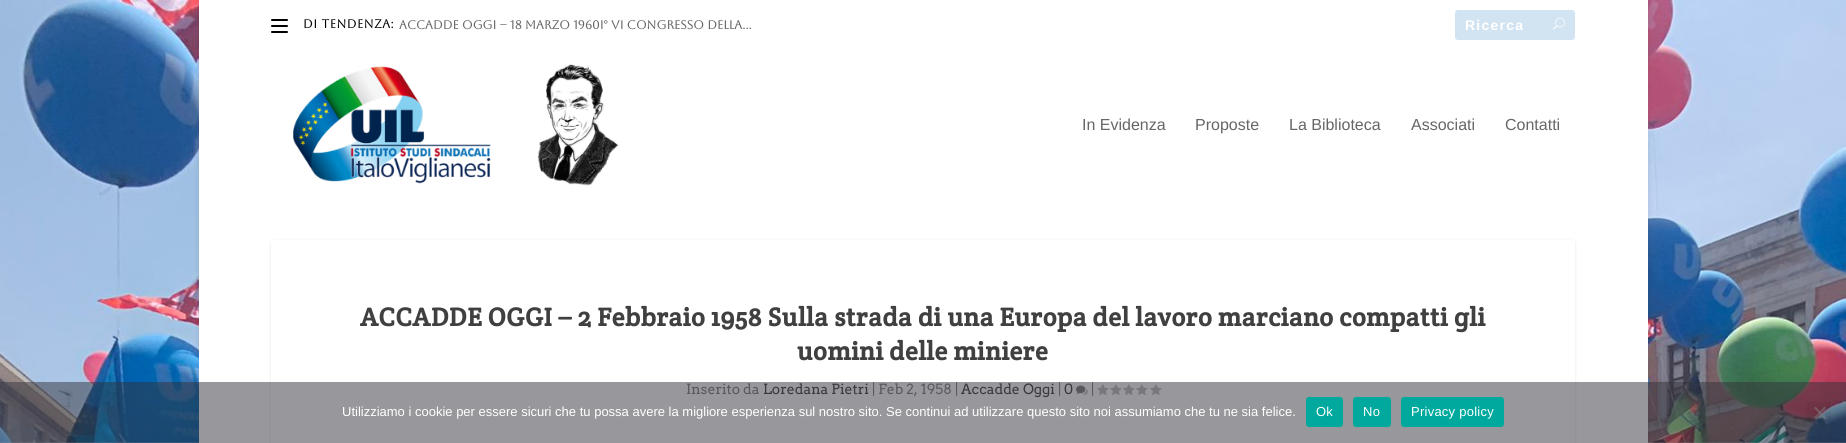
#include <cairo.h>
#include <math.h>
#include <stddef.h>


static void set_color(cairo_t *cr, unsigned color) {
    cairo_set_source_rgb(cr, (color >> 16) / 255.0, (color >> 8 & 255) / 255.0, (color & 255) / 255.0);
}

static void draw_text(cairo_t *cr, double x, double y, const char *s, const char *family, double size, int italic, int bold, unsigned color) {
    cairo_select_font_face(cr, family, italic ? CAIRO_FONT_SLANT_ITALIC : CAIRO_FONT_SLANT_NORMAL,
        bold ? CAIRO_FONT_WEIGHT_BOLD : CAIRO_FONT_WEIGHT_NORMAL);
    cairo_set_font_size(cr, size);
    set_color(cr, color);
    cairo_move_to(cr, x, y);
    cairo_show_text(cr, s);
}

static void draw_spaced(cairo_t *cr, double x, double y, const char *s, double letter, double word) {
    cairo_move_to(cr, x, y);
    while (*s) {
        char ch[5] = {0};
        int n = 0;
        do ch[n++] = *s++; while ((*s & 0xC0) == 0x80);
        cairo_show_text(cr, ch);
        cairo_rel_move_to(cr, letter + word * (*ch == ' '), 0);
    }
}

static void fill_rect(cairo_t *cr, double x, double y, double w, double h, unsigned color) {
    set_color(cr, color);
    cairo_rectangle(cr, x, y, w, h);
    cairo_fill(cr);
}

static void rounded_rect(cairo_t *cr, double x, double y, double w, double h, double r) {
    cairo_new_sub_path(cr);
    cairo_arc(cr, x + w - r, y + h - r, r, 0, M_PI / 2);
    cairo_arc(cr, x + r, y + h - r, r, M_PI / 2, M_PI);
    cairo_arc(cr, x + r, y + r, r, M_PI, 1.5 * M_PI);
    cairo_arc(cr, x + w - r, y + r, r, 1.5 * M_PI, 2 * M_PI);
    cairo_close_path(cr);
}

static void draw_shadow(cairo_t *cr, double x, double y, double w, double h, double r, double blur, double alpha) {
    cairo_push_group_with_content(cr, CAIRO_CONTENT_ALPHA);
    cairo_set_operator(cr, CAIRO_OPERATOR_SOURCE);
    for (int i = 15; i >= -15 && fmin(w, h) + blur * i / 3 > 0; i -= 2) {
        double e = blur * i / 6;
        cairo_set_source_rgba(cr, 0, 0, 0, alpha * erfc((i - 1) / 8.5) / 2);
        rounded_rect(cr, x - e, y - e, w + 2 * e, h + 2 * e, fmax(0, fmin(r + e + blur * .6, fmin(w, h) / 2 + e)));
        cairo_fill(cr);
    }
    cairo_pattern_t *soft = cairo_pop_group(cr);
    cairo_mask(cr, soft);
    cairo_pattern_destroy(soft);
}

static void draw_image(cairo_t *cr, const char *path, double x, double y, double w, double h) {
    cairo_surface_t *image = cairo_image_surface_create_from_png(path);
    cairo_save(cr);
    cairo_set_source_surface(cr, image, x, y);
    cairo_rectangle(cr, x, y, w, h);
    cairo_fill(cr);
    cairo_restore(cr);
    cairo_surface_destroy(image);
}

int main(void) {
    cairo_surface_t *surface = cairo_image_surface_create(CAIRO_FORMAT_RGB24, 1846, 443);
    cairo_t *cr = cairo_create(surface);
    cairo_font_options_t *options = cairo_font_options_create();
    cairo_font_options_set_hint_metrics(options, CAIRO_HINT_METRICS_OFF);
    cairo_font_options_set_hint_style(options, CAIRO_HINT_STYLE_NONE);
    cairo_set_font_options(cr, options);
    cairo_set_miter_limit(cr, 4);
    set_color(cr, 0xFFFFFF);
    cairo_paint(cr);
    draw_image(cr, "assets/img1.png", 0, 0, 1846, 443);
    set_color(cr, 0x000000);
    draw_shadow(cr, 199, 1, 1449, 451, 0, 3, 0.1);
    fill_rect(cr, 199, 0, 1449, 443, 0xFFFFFF);
    set_color(cr, 0x000000);
    rounded_rect(cr, 271, 19, 17, 2, 1);
    cairo_fill(cr);
    rounded_rect(cr, 271, 25, 17, 2, 1);
    cairo_fill(cr);
    rounded_rect(cr, 271, 31, 17, 2, 1);
    cairo_fill(cr);
    cairo_select_font_face(cr, "Aboreto", CAIRO_FONT_SLANT_NORMAL, CAIRO_FONT_WEIGHT_BOLD);
    cairo_set_font_size(cr, 12);
    draw_spaced(cr, 303, 28, "DI TENDENZA:", 0.5, 0);
    draw_text(cr, 399, 29, "ACCADDE OGGI – 18 marzo 1960I° VI Congresso della...", "Aboreto", 12, 0, 1, 0x666666);
    set_color(cr, 0xD2E3F2);
    rounded_rect(cr, 1455, 10, 120, 30, 3);
    cairo_fill(cr);
    cairo_select_font_face(cr, "Liberation Sans", CAIRO_FONT_SLANT_NORMAL, CAIRO_FONT_WEIGHT_BOLD);
    cairo_set_font_size(cr, 14);
    set_color(cr, 0xFFFFFF);
    draw_spaced(cr, 1465, 30, "Ricerca", 1.25, 0);
    draw_image(cr, "assets/img2.png", 1553, 17, 12, 13);
    draw_image(cr, "assets/img3.png", 293, 64, 326, 122);
    draw_text(cr, 1082, 130, "In Evidenza", "Liberation Sans", 16, 0, 0, 0x666666);
    draw_text(cr, 1195, 130, "Proposte", "Liberation Sans", 16, 0, 0, 0x666666);
    draw_text(cr, 1289, 130, "La Biblioteca", "Liberation Sans", 16, 0, 0, 0x666666);
    draw_text(cr, 1411, 130, "Associati", "Liberation Sans", 16, 0, 0, 0x666666);
    draw_text(cr, 1505, 130, "Contatti", "Liberation Sans", 16, 0, 0, 0x666666);
    set_color(cr, 0x000000);
    draw_shadow(cr, 271, 241, 1304, 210, 3, 1.5, 0.1);
    set_color(cr, 0xFFFFFF);
    rounded_rect(cr, 271, 240, 1304, 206, 3);
    cairo_fill(cr);
    cairo_select_font_face(cr, "Crete Round", CAIRO_FONT_SLANT_NORMAL, CAIRO_FONT_WEIGHT_BOLD);
    cairo_set_font_size(cr, 26);
    set_color(cr, 0x404040);
    draw_spaced(cr, 360, 326, "ACCADDE OGGI – 2 Febbraio 1958 Sulla strada di una Europa del lavoro marciano compatti gli", 0.5, 0);
    draw_spaced(cr, 797, 360, "uomini delle miniere", 0.5, 0);
    draw_text(cr, 686, 394, "Inserito da", "Arvo", 14, 0, 0, 0x808080);
    draw_text(cr, 763, 394, "Loredana Pietri", "Arvo", 14, 0, 0, 0x404040);
    draw_text(cr, 872, 394, "| Feb 2, 1958 |", "Arvo", 14, 0, 0, 0x808080);
    draw_text(cr, 961, 394, "Accadde Oggi", "Arvo", 14, 0, 0, 0x404040);
    draw_text(cr, 1058, 394, "|", "Arvo", 14, 0, 0, 0x808080);
    draw_text(cr, 1064, 394, "0", "Arvo", 14, 0, 0, 0x404040);
    draw_image(cr, "assets/img4.png", 1076, 385, 12, 10);
    draw_text(cr, 1091, 394, "|", "Arvo", 14, 0, 0, 0x808080);
    draw_image(cr, "assets/img5.png", 1097, 384, 12, 12);
    draw_image(cr, "assets/img5.png", 1110, 384, 12, 12);
    draw_image(cr, "assets/img5.png", 1123, 384, 12, 12);
    draw_image(cr, "assets/img5.png", 1136, 384, 12, 12);
    draw_image(cr, "assets/img5.png", 1150, 384, 12, 12);
    cairo_set_source_rgba(cr, 0.196, 0.196, 0.227, 0.5);
    cairo_rectangle(cr, 0, 382, 1846, 61);
    cairo_fill(cr);
    draw_text(cr, 342, 416, "Utilizziamo i cookie per essere sicuri che tu possa avere la migliore esperienza sul nostro sito. Se continui ad utilizzare questo sito noi assumiamo che tu ne sia felice.", "Liberation Sans", 13, 0, 0, 0xFFFFFF);
    set_color(cr, 0x00A99D);
    rounded_rect(cr, 1306, 397, 37, 30, 3);
    cairo_fill(cr);
    set_color(cr, 0xFFFFFF);
    draw_spaced(cr, 1316, 416, "Ok", 0.25, 0);
    set_color(cr, 0x00A99D);
    rounded_rect(cr, 1353, 397, 38, 30, 3);
    cairo_fill(cr);
    set_color(cr, 0xFFFFFF);
    draw_spaced(cr, 1363, 416, "No", 0.25, 0);
    set_color(cr, 0x00A99D);
    rounded_rect(cr, 1401, 397, 103, 30, 3);
    cairo_fill(cr);
    set_color(cr, 0xFFFFFF);
    draw_spaced(cr, 1411, 416, "Privacy policy", 0.25, 0);
    cairo_set_source_rgba(cr, 0, 0, 0, 0.05);
    cairo_rectangle(cr, 1807, 402, 24, 20);
    cairo_fill(cr);
    cairo_set_source_rgba(cr, 0.502, 0.502, 0.502, 0.5);
    cairo_new_path(cr);
    cairo_move_to(cr, 1824.5, 406.5);
    cairo_line_to(cr, 1826, 408);
    cairo_line_to(cr, 1815.5, 419);
    cairo_line_to(cr, 1814, 417.5);
    cairo_close_path(cr);
    cairo_fill(cr);
    cairo_new_path(cr);
    cairo_move_to(cr, 1814, 408);
    cairo_line_to(cr, 1815.5, 406.5);
    cairo_line_to(cr, 1826, 417.5);
    cairo_line_to(cr, 1824.5, 419);
    cairo_close_path(cr);
    cairo_fill(cr);
    cairo_surface_write_to_png(surface, "output.png");
    cairo_font_options_destroy(options);
    cairo_destroy(cr);
    cairo_surface_destroy(surface);
    return 0;
}
